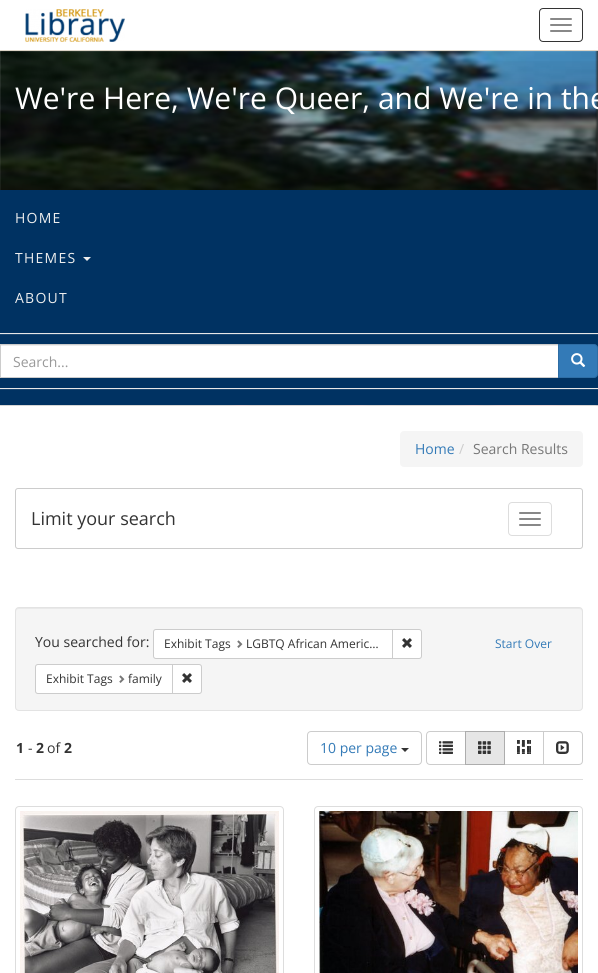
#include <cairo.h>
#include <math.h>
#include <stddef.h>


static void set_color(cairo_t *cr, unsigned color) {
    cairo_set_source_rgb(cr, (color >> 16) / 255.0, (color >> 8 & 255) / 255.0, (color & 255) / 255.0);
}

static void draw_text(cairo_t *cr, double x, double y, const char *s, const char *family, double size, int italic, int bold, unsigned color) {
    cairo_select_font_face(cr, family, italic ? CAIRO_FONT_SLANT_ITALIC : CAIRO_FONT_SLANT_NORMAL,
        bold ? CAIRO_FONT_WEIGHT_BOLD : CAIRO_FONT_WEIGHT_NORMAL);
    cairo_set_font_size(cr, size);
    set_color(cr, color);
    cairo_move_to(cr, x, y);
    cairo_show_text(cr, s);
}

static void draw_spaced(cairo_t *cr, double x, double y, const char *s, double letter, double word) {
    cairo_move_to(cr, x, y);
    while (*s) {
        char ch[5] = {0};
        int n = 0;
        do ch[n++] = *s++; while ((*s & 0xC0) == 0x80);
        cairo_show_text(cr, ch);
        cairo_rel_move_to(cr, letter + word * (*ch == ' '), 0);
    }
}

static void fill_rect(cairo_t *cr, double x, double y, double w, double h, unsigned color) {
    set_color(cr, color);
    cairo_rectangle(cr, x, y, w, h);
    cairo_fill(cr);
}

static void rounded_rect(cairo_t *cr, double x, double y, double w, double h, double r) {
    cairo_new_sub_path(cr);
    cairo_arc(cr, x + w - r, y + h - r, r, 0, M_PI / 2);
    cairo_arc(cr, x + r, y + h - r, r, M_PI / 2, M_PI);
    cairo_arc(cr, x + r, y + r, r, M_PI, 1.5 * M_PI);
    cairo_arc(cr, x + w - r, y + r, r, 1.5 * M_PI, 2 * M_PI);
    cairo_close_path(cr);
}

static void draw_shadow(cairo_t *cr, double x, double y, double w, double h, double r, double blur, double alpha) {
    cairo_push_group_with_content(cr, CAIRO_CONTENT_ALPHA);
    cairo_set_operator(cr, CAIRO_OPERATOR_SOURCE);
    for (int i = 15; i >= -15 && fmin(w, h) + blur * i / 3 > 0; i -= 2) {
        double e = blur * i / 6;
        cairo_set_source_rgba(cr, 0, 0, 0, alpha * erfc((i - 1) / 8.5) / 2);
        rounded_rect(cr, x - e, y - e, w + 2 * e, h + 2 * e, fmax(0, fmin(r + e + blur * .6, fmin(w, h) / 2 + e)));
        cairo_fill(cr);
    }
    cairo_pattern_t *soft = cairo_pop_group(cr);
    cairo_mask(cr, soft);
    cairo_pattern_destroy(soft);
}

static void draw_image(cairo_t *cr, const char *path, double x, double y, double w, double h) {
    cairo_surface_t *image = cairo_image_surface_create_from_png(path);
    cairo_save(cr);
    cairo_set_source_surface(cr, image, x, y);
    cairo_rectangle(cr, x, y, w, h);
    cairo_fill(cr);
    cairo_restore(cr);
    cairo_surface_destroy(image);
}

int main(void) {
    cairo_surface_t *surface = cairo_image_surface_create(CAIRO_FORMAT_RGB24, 598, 973);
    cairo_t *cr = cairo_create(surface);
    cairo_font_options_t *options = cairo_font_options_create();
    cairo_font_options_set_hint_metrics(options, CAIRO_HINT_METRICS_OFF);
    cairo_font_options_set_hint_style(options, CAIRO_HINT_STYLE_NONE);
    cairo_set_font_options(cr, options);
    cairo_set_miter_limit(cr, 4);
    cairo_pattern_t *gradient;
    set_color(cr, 0xFFFFFF);
    cairo_paint(cr);
    fill_rect(cr, 0, 405, 598, 1, 0xE7E7E7);
    draw_image(cr, "assets/img2.png", 0, 51, 598, 355);
    set_color(cr, 0x000000);
    draw_shadow(cr, 597, 50, 1, 354, 0, 1, 1);
    fill_rect(cr, 595, 48, 3, 2, 0xFFFFFF);
    fill_rect(cr, 0, 50, 598, 1, 0xDDD5C7);
    draw_image(cr, "assets/img1.png", 25, 9, 100, 33);
    rounded_rect(cr, 539.5, 8.5, 43, 33, 3.5);
    set_color(cr, 0x333333);
    cairo_set_line_width(cr, 1);
    cairo_stroke(cr);
    set_color(cr, 0x888888);
    rounded_rect(cr, 550, 18, 22, 2, 1);
    cairo_fill(cr);
    rounded_rect(cr, 550, 24, 22, 2, 1);
    cairo_fill(cr);
    rounded_rect(cr, 550, 30, 22, 2, 1);
    cairo_fill(cr);
    gradient = cairo_pattern_create_linear(299, 51, 299, 405);
    cairo_pattern_add_color_stop_rgba(gradient, 0, 0, 0, 0, 0);
    cairo_pattern_add_color_stop_rgba(gradient, 0.5, 0, 0, 0, 0.4);
    cairo_pattern_add_color_stop_rgba(gradient, 1, 0, 0, 0, 0.5);
    cairo_set_source(cr, gradient);
    cairo_pattern_destroy(gradient);
    cairo_rectangle(cr, 0, 61, 598, 129);
    cairo_fill(cr);
    draw_text(cr, 15, 109, "We're Here, We're Queer, and We're in the", "Open Sans", 30, 0, 0, 0xFFFFFF);
    fill_rect(cr, 0, 190, 598, 215, 0x003262);
    cairo_set_font_size(cr, 14);
    set_color(cr, 0xEEEEEE);
    draw_spaced(cr, 15, 223, "HOME", 1.25, 0);
    draw_spaced(cr, 15, 263, "THEMES", 1.25, 0);
    cairo_new_path(cr);
    cairo_move_to(cr, 83, 257);
    cairo_line_to(cr, 91, 257);
    cairo_line_to(cr, 87, 261);
    cairo_close_path(cr);
    cairo_fill(cr);
    draw_spaced(cr, 15, 303, "ABOUT", 1.25, 0);
    fill_rect(cr, 0, 389, 598, 1, 0x1A4772);
    fill_rect(cr, 0, 334, 598, 1, 0x1A4772);
    fill_rect(cr, 0, 333, 598, 1, 0xE7E7E7);
    fill_rect(cr, 0, 388, 598, 1, 0xE7E7E7);
    fill_rect(cr, 1, 346, 557, 31, 0xFFFFFF);
    fill_rect(cr, 1, 345, 557, 1, 0xECECEC);
    cairo_rectangle(cr, 0.5, 344.5, 558, 33);
    set_color(cr, 0xCCCCCC);
    cairo_stroke(cr);
    draw_text(cr, 13, 367, "Search...", "Open Sans", 14, 0, 0, 0x999999);
    set_color(cr, 0x337AB7);
    cairo_new_path(cr);
    cairo_move_to(cr, 558.5, 344.5);
    cairo_line_to(cr, 594, 344.5);
    cairo_curve_to(cr, 596, 344.5, 597.5, 346, 597.5, 348);
    cairo_line_to(cr, 597.5, 374);
    cairo_curve_to(cr, 597.5, 376, 596, 377.5, 594, 377.5);
    cairo_line_to(cr, 558.5, 377.5);
    cairo_close_path(cr);
    cairo_fill_preserve(cr);
    set_color(cr, 0x2E6DA4);
    cairo_stroke(cr);
    draw_image(cr, "assets/img3.png", 571, 353, 15, 14);
    set_color(cr, 0xF5F5F5);
    rounded_rect(cr, 400, 431, 183, 36, 4);
    cairo_fill(cr);
    draw_text(cr, 415, 454, "Home", "Open Sans", 14, 0, 0, 0x337AB7);
    draw_text(cr, 459, 454, "/", "Open Sans", 14, 0, 0, 0xCCCCCC);
    draw_text(cr, 473, 454, "Search Results", "Open Sans", 14, 0, 0, 0x777777);
    rounded_rect(cr, 15.5, 488.5, 567, 60, 2.5);
    set_color(cr, 0xCCCCCC);
    cairo_stroke(cr);
    draw_text(cr, 31, 525, "Limit your search", "Open Sans", 18, 0, 0, 0x333333);
    rounded_rect(cr, 508.5, 502.5, 43, 33, 3.5);
    set_color(cr, 0xDDDDDD);
    cairo_stroke(cr);
    set_color(cr, 0x888888);
    rounded_rect(cr, 519, 512, 22, 2, 1);
    cairo_fill(cr);
    rounded_rect(cr, 519, 518, 22, 2, 1);
    cairo_fill(cr);
    rounded_rect(cr, 519, 524, 22, 2, 1);
    cairo_fill(cr);
    set_color(cr, 0xF5F5F5);
    rounded_rect(cr, 15, 607, 568, 104, 4);
    cairo_fill(cr);
    set_color(cr, 0xE9E9E9);
    cairo_new_path(cr);
    cairo_move_to(cr, 19, 609);
    cairo_line_to(cr, 579, 609);
    cairo_curve_to(cr, 581, 609, 582, 610, 582, 612);
    cairo_line_to(cr, 582, 611);
    cairo_curve_to(cr, 582, 609, 581, 608, 579, 608);
    cairo_line_to(cr, 19, 608);
    cairo_curve_to(cr, 17, 608, 16, 609, 16, 611);
    cairo_line_to(cr, 16, 612);
    cairo_curve_to(cr, 16, 610, 17, 609, 19, 609);
    cairo_close_path(cr);
    cairo_fill(cr);
    rounded_rect(cr, 15.5, 607.5, 567, 103, 3.5);
    set_color(cr, 0xE3E3E3);
    cairo_stroke(cr);
    draw_text(cr, 35, 647, "You searched for:", "Open Sans", 14, 0, 0, 0x333333);
    set_color(cr, 0xFFFFFF);
    cairo_new_path(cr);
    cairo_move_to(cr, 156, 629.5);
    cairo_line_to(cr, 392.5, 629.5);
    cairo_line_to(cr, 392.5, 658.5);
    cairo_line_to(cr, 156, 658.5);
    cairo_curve_to(cr, 154.5, 658.5, 153.5, 657.5, 153.5, 656);
    cairo_line_to(cr, 153.5, 632);
    cairo_curve_to(cr, 153.5, 630.5, 154.5, 629.5, 156, 629.5);
    cairo_close_path(cr);
    cairo_fill_preserve(cr);
    set_color(cr, 0xCCCCCC);
    cairo_stroke(cr);
    draw_text(cr, 164, 648, "Exhibit Tags", "Open Sans", 12, 0, 0, 0x333333);
    draw_image(cr, "assets/img4.png", 237, 640, 6, 8);
    draw_text(cr, 246, 648, "LGBTQ African Americ…", "Open Sans", 12, 0, 0, 0x333333);
    set_color(cr, 0xFFFFFF);
    cairo_new_path(cr);
    cairo_move_to(cr, 392.5, 629.5);
    cairo_line_to(cr, 419, 629.5);
    cairo_curve_to(cr, 420.5, 629.5, 421.5, 630.5, 421.5, 632);
    cairo_line_to(cr, 421.5, 656);
    cairo_curve_to(cr, 421.5, 657.5, 420.5, 658.5, 419, 658.5);
    cairo_line_to(cr, 392.5, 658.5);
    cairo_close_path(cr);
    cairo_fill_preserve(cr);
    set_color(cr, 0xCCCCCC);
    cairo_stroke(cr);
    draw_image(cr, "assets/img5.png", 402, 638, 10, 10);
    draw_text(cr, 495, 648, "Start Over", "Open Sans", 12, 0, 0, 0x337AB7);
    set_color(cr, 0xFFFFFF);
    cairo_new_path(cr);
    cairo_move_to(cr, 38, 664.5);
    cairo_line_to(cr, 172.5, 664.5);
    cairo_line_to(cr, 172.5, 693.5);
    cairo_line_to(cr, 38, 693.5);
    cairo_curve_to(cr, 36.5, 693.5, 35.5, 692.5, 35.5, 691);
    cairo_line_to(cr, 35.5, 667);
    cairo_curve_to(cr, 35.5, 665.5, 36.5, 664.5, 38, 664.5);
    cairo_close_path(cr);
    cairo_fill_preserve(cr);
    set_color(cr, 0xCCCCCC);
    cairo_stroke(cr);
    draw_text(cr, 46, 683, "Exhibit Tags", "Open Sans", 12, 0, 0, 0x333333);
    draw_image(cr, "assets/img4.png", 119, 675, 6, 8);
    draw_text(cr, 128, 683, "family", "Open Sans", 12, 0, 0, 0x333333);
    set_color(cr, 0xFFFFFF);
    cairo_new_path(cr);
    cairo_move_to(cr, 172.5, 664.5);
    cairo_line_to(cr, 199, 664.5);
    cairo_curve_to(cr, 200.5, 664.5, 201.5, 665.5, 201.5, 667);
    cairo_line_to(cr, 201.5, 691);
    cairo_curve_to(cr, 201.5, 692.5, 200.5, 693.5, 199, 693.5);
    cairo_line_to(cr, 172.5, 693.5);
    cairo_close_path(cr);
    cairo_fill_preserve(cr);
    set_color(cr, 0xCCCCCC);
    cairo_stroke(cr);
    draw_image(cr, "assets/img5.png", 182, 673, 10, 10);
    fill_rect(cr, 15, 779, 568, 1, 0xDDDDDD);
    draw_text(cr, 16, 753, "1", "Open Sans", 14, 0, 1, 0x333333);
    draw_text(cr, 28, 753, "-", "Open Sans", 14, 0, 0, 0x333333);
    draw_text(cr, 36, 753, "2", "Open Sans", 14, 0, 1, 0x333333);
    draw_text(cr, 47, 753, "of", "Open Sans", 14, 0, 0, 0x333333);
    draw_text(cr, 64, 753, "2", "Open Sans", 14, 0, 1, 0x333333);
    rounded_rect(cr, 307.5, 731.5, 114, 33, 3.5);
    set_color(cr, 0xCCCCCC);
    cairo_stroke(cr);
    draw_text(cr, 320, 753, "10 per page", "Open Sans", 14, 0, 0, 0x337AB7);
    set_color(cr, 0x333333);
    cairo_new_path(cr);
    cairo_move_to(cr, 401, 748);
    cairo_line_to(cr, 409, 748);
    cairo_line_to(cr, 405, 752);
    cairo_close_path(cr);
    cairo_fill(cr);
    cairo_new_path(cr);
    cairo_move_to(cr, 430, 731.5);
    cairo_line_to(cr, 465.5, 731.5);
    cairo_line_to(cr, 465.5, 764.5);
    cairo_line_to(cr, 430, 764.5);
    cairo_curve_to(cr, 428, 764.5, 426.5, 763, 426.5, 761);
    cairo_line_to(cr, 426.5, 735);
    cairo_curve_to(cr, 426.5, 733, 428, 731.5, 430, 731.5);
    cairo_close_path(cr);
    set_color(cr, 0xCCCCCC);
    cairo_stroke(cr);
    draw_image(cr, "assets/img6.png", 439, 741, 14, 13);
    cairo_rectangle(cr, 504.5, 731.5, 39, 33);
    cairo_stroke(cr);
    set_color(cr, 0xE6E6E6);
    cairo_rectangle(cr, 465.5, 731.5, 39, 33);
    cairo_fill_preserve(cr);
    set_color(cr, 0xADADAD);
    cairo_stroke(cr);
    draw_image(cr, "assets/img7.png", 478, 741, 13, 13);
    draw_image(cr, "assets/img8.png", 517, 740, 14, 14);
    set_color(cr, 0xFFFFFF);
    cairo_new_path(cr);
    cairo_move_to(cr, 543.5, 731.5);
    cairo_line_to(cr, 579, 731.5);
    cairo_curve_to(cr, 581, 731.5, 582.5, 733, 582.5, 735);
    cairo_line_to(cr, 582.5, 761);
    cairo_curve_to(cr, 582.5, 763, 581, 764.5, 579, 764.5);
    cairo_line_to(cr, 543.5, 764.5);
    cairo_close_path(cr);
    cairo_fill_preserve(cr);
    set_color(cr, 0xCCCCCC);
    cairo_stroke(cr);
    draw_image(cr, "assets/img9.png", 556, 741, 13, 13);
    rounded_rect(cr, 15.5, 806.5, 268, 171, 3.5);
    set_color(cr, 0xDDDDDD);
    cairo_stroke(cr);
    draw_image(cr, "assets/img10.png", 20, 811, 259, 162);
    rounded_rect(cr, 314.5, 806.5, 268, 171, 3.5);
    cairo_stroke(cr);
    draw_image(cr, "assets/img11.png", 319, 811, 259, 162);
    cairo_surface_write_to_png(surface, "output.png");
    cairo_font_options_destroy(options);
    cairo_destroy(cr);
    cairo_surface_destroy(surface);
    return 0;
}
